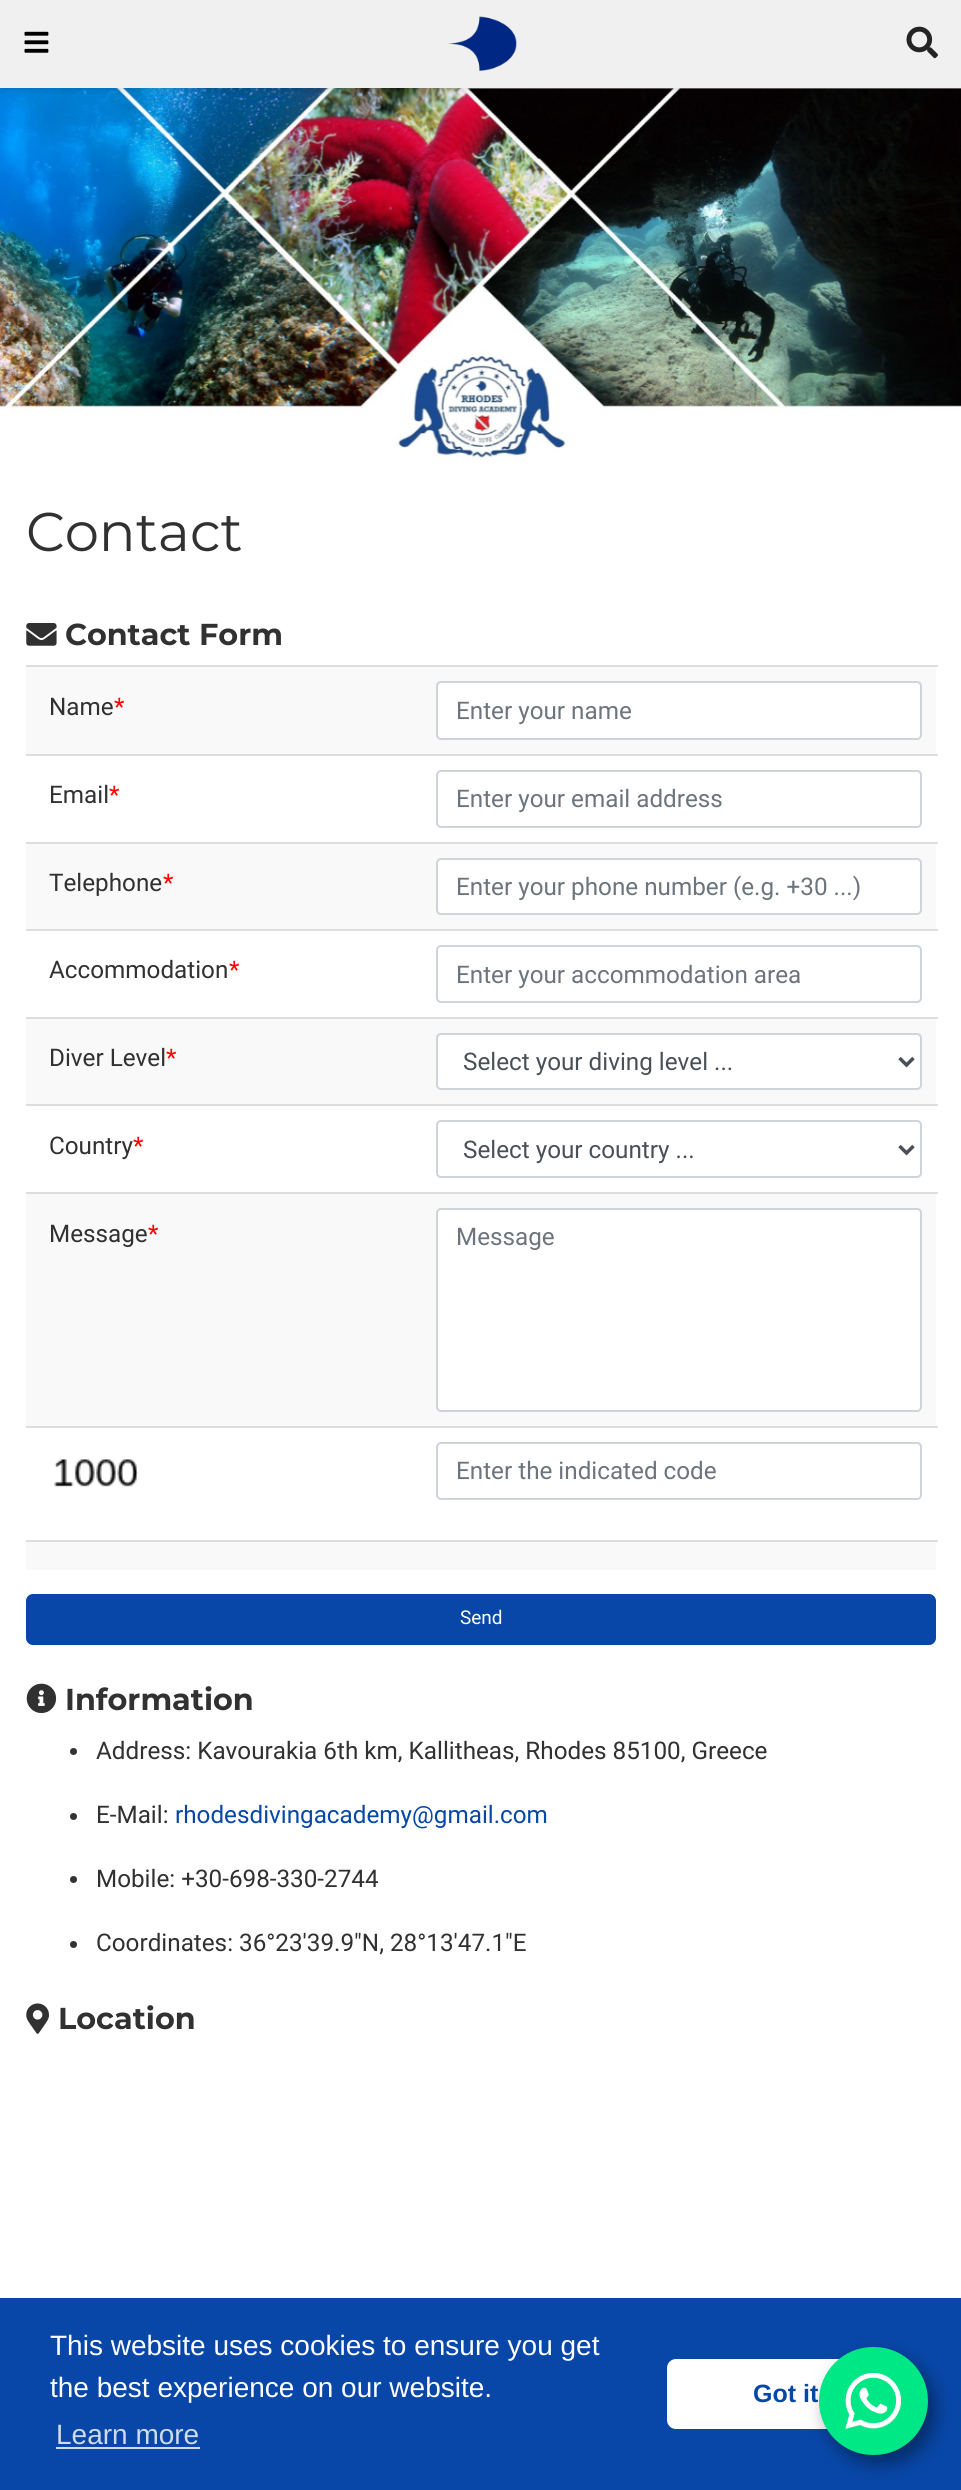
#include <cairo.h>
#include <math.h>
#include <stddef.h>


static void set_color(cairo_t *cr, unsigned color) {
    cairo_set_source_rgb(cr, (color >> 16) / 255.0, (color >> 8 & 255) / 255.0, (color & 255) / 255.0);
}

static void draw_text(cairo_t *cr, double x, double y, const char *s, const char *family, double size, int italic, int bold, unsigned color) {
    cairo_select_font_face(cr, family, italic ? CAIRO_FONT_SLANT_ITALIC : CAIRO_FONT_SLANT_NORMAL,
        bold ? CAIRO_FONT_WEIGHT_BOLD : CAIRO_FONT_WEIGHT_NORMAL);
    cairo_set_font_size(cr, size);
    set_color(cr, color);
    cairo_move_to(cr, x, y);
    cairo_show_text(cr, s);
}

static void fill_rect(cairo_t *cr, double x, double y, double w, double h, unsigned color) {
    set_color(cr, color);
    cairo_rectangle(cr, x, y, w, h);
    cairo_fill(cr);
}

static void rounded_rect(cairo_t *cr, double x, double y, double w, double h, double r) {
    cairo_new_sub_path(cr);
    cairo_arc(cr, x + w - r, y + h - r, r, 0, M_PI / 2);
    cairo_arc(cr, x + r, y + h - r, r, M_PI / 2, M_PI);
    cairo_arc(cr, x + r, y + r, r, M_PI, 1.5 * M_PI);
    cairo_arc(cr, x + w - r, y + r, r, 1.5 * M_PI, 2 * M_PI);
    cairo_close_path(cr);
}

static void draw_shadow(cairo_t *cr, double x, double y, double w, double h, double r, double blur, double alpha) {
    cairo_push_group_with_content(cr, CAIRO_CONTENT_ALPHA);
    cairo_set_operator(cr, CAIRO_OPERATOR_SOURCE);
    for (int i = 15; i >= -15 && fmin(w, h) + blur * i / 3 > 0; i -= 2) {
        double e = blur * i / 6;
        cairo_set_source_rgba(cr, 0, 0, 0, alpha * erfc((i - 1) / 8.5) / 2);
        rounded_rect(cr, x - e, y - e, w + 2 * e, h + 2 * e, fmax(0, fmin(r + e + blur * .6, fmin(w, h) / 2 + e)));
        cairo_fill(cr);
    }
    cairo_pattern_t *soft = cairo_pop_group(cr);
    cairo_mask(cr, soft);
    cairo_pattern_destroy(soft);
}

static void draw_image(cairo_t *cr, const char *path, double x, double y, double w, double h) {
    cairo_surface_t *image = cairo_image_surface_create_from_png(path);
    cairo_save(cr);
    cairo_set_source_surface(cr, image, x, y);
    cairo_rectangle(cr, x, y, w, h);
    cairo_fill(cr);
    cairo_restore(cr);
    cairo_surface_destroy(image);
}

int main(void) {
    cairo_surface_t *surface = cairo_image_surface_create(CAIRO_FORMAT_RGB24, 961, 2490);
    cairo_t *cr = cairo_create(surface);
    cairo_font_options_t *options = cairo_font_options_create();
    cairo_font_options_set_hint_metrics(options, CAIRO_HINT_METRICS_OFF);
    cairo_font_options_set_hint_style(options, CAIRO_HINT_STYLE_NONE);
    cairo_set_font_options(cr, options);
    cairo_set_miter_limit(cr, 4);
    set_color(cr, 0xFFFFFF);
    cairo_paint(cr);
    draw_image(cr, "assets/img4.png", 0, 88, 961, 375);
    set_color(cr, 0x000000);
    draw_shadow(cr, 0, 4, 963, 87, 0, 3, 0.11);
    fill_rect(cr, 0, 0, 961, 88, 0xF0F0F0);
    draw_image(cr, "assets/img1.png", 24, 31, 25, 22);
    draw_image(cr, "assets/img2.png", 447, 16, 70, 55);
    draw_image(cr, "assets/img3.png", 906, 26, 32, 33);
    draw_text(cr, 26, 551, "Contact", "Montserrat", 54.5, 0, 0, 0x313131);
    draw_image(cr, "assets/img5.png", 26, 623, 31, 23);
    draw_text(cr, 65, 645, "Contact Form", "Montserrat", 30.25, 0, 1, 0x313131);
    fill_rect(cr, 26, 667, 910, 87, 0xF9F9F9);
    draw_text(cr, 49, 715, "Name", "Roboto", 24.25, 0, 0, 0x313131);
    draw_text(cr, 114, 715, "*", "Roboto", 24.25, 0, 0, 0xFF0000);
    fill_rect(cr, 26, 665, 912, 2, 0xDDDDDD);
    set_color(cr, 0xFFFFFF);
    rounded_rect(cr, 437, 682, 484, 57, 4);
    cairo_fill_preserve(cr);
    set_color(cr, 0xCED4DA);
    cairo_stroke(cr);
    draw_text(cr, 456, 719, "Enter your name", "Roboto", 24.25, 0, 0, 0x6C757D);
    draw_text(cr, 49, 803, "Email", "Roboto", 24.25, 0, 0, 0x313131);
    draw_text(cr, 109, 803, "*", "Roboto", 24.25, 0, 0, 0xFF0000);
    fill_rect(cr, 26, 754, 912, 2, 0xDDDDDD);
    rounded_rect(cr, 437, 771, 484, 56, 4);
    set_color(cr, 0xCED4DA);
    cairo_stroke(cr);
    draw_text(cr, 456, 807, "Enter your email address", "Roboto", 24.25, 0, 0, 0x6C757D);
    fill_rect(cr, 26, 844, 910, 85, 0xF9F9F9);
    draw_text(cr, 49, 891, "Telephone", "Roboto", 24.25, 0, 0, 0x313131);
    draw_text(cr, 163, 891, "*", "Roboto", 24.25, 0, 0, 0xFF0000);
    fill_rect(cr, 26, 842, 912, 2, 0xDDDDDD);
    set_color(cr, 0xFFFFFF);
    rounded_rect(cr, 437, 859, 484, 55, 4);
    cairo_fill_preserve(cr);
    set_color(cr, 0xCED4DA);
    cairo_stroke(cr);
    cairo_save(cr);
    cairo_rectangle(cr, 457, 872, 446, 28);
    cairo_clip(cr);
    draw_text(cr, 456, 895, "Enter your phone number (e.g. +30 ...)", "Roboto", 24.25, 0, 0, 0x6C757D);
    cairo_restore(cr);
    draw_text(cr, 49, 978, "Accommodation", "Roboto", 24.25, 0, 0, 0x313131);
    draw_text(cr, 229, 978, "*", "Roboto", 24.25, 0, 0, 0xFF0000);
    fill_rect(cr, 26, 929, 912, 2, 0xDDDDDD);
    rounded_rect(cr, 437, 946, 484, 56, 4);
    set_color(cr, 0xCED4DA);
    cairo_stroke(cr);
    draw_text(cr, 456, 983, "Enter your accommodation area", "Roboto", 24.25, 0, 0, 0x6C757D);
    fill_rect(cr, 26, 1019, 910, 85, 0xF9F9F9);
    draw_text(cr, 49, 1066, "Diver Level", "Roboto", 24.25, 0, 0, 0x313131);
    draw_text(cr, 166, 1066, "*", "Roboto", 24.25, 0, 0, 0xFF0000);
    fill_rect(cr, 26, 1017, 912, 2, 0xDDDDDD);
    set_color(cr, 0xFFFFFF);
    rounded_rect(cr, 437, 1034, 484, 55, 4);
    cairo_fill_preserve(cr);
    set_color(cr, 0xCED4DA);
    cairo_stroke(cr);
    cairo_new_path(cr);
    cairo_move_to(cr, 899.5, 1058);
    cairo_line_to(cr, 906.5, 1065);
    cairo_line_to(cr, 913.5, 1058);
    set_color(cr, 0x495057);
    cairo_set_line_width(cr, 3.5);
    cairo_stroke(cr);
    draw_text(cr, 463, 1070, "Select your diving level ...", "Roboto", 24.25, 0, 0, 0x495057);
    draw_text(cr, 49, 1154, "Country", "Roboto", 24.25, 0, 0, 0x313131);
    draw_text(cr, 133, 1154, "*", "Roboto", 24.25, 0, 0, 0xFF0000);
    fill_rect(cr, 26, 1104, 912, 2, 0xDDDDDD);
    rounded_rect(cr, 437, 1121, 484, 56, 4);
    set_color(cr, 0xCED4DA);
    cairo_set_line_width(cr, 2);
    cairo_stroke(cr);
    cairo_new_path(cr);
    cairo_move_to(cr, 899.5, 1146);
    cairo_line_to(cr, 906.5, 1153);
    cairo_line_to(cr, 913.5, 1146);
    set_color(cr, 0x495057);
    cairo_set_line_width(cr, 3.5);
    cairo_stroke(cr);
    draw_text(cr, 463, 1158, "Select your country ...", "Roboto", 24.25, 0, 0, 0x495057);
    fill_rect(cr, 26, 1194, 910, 232, 0xF9F9F9);
    draw_text(cr, 49, 1242, "Message", "Roboto", 24.25, 0, 0, 0x313131);
    draw_text(cr, 148, 1242, "*", "Roboto", 24.25, 0, 0, 0xFF0000);
    fill_rect(cr, 26, 1192, 912, 2, 0xDDDDDD);
    set_color(cr, 0xFFFFFF);
    rounded_rect(cr, 437, 1209, 484, 202, 4);
    cairo_fill_preserve(cr);
    set_color(cr, 0xCED4DA);
    cairo_set_line_width(cr, 2);
    cairo_stroke(cr);
    draw_text(cr, 456, 1245, "Message", "Roboto", 24.25, 0, 0, 0x6C757D);
    draw_image(cr, "assets/img6.png", 54, 1459, 85, 28);
    fill_rect(cr, 26, 1426, 912, 2, 0xDDDDDD);
    rounded_rect(cr, 437, 1443, 484, 56, 4);
    set_color(cr, 0xCED4DA);
    cairo_stroke(cr);
    draw_text(cr, 456, 1479, "Enter the indicated code", "Roboto", 24.25, 0, 0, 0x6C757D);
    fill_rect(cr, 26, 1540, 912, 2, 0xDDDDDD);
    fill_rect(cr, 26, 1542, 910, 28, 0xF9F9F9);
    set_color(cr, 0x0847A8);
    rounded_rect(cr, 27, 1595, 908, 49, 6);
    cairo_fill_preserve(cr);
    cairo_stroke(cr);
    draw_text(cr, 460, 1624, "Send", "Roboto", 19, 0, 0, 0xFFFFFF);
    draw_image(cr, "assets/img7.png", 26, 1683, 31, 31);
    draw_text(cr, 65, 1710, "Information", "Montserrat", 30.25, 0, 1, 0x313131);
    set_color(cr, 0x333333);
    cairo_new_path(cr);
    cairo_arc(cr, 73.5, 1751.5, 3.5, 0, 2 * M_PI);
    cairo_fill(cr);
    draw_text(cr, 96, 1759, "Address: Kavourakia 6th km, Kallitheas, Rhodes 85100, Greece", "Roboto", 24.25, 0, 0, 0x313131);
    set_color(cr, 0x333333);
    cairo_new_path(cr);
    cairo_arc(cr, 73.5, 1816.5, 3.5, 0, 2 * M_PI);
    cairo_fill(cr);
    draw_text(cr, 96, 1823, "E-Mail:", "Roboto", 24.25, 0, 0, 0x313131);
    draw_text(cr, 175, 1823, "rhodesdivingacademy@gmail.com", "Roboto", 24.25, 0, 0, 0x0847A8);
    set_color(cr, 0x333333);
    cairo_new_path(cr);
    cairo_arc(cr, 73.5, 1879.5, 3.5, 0, 2 * M_PI);
    cairo_fill(cr);
    draw_text(cr, 96, 1887, "Mobile: +30-698-330-2744", "Roboto", 24.25, 0, 0, 0x313131);
    set_color(cr, 0x333333);
    cairo_new_path(cr);
    cairo_arc(cr, 73.5, 1944.5, 3.5, 0, 2 * M_PI);
    cairo_fill(cr);
    draw_text(cr, 96, 1951, "Coordinates: 36°23'39.9\"N, 28°13'47.1\"E", "Roboto", 24.25, 0, 0, 0x313131);
    draw_image(cr, "assets/img8.png", 26, 2003, 23, 31);
    draw_text(cr, 58, 2029, "Location", "Montserrat", 30.25, 0, 1, 0x313131);
    fill_rect(cr, 0, 2298, 961, 192, 0x0847A8);
    draw_text(cr, 50, 2355, "This website uses cookies to ensure you get", "Liberation Sans", 28, 0, 0, 0xFFFFFF);
    draw_text(cr, 50, 2397, "the best experience on our website.", "Liberation Sans", 28, 0, 0, 0xFFFFFF);
    draw_text(cr, 56, 2444, "Learn more", "Liberation Sans", 28, 0, 0, 0xCEDAEE);
    fill_rect(cr, 56, 2447, 144, 2, 0xCEDAEE);
    set_color(cr, 0xFFFFFF);
    rounded_rect(cr, 667, 2359, 245, 70, 9);
    cairo_fill(cr);
    draw_text(cr, 753, 2402, "Got it", "Liberation Sans", 25, 0, 1, 0x0847A8);
    set_color(cr, 0x000000);
    draw_shadow(cr, 826, 2356, 109, 108, 54, 9, 0.4);
    set_color(cr, 0x00E785);
    rounded_rect(cr, 819, 2347, 109, 108, 54);
    cairo_fill(cr);
    draw_image(cr, "assets/img9.png", 845, 2373, 56, 56);
    cairo_surface_write_to_png(surface, "output.png");
    cairo_font_options_destroy(options);
    cairo_destroy(cr);
    cairo_surface_destroy(surface);
    return 0;
}
